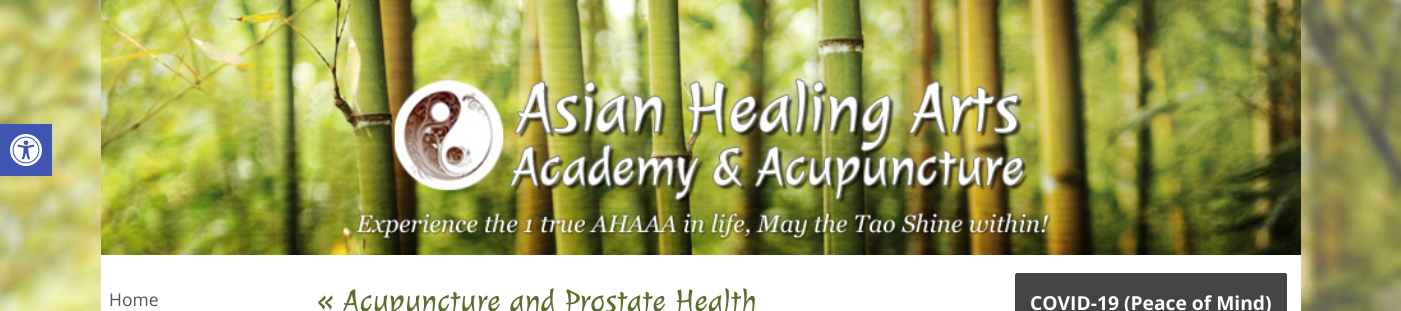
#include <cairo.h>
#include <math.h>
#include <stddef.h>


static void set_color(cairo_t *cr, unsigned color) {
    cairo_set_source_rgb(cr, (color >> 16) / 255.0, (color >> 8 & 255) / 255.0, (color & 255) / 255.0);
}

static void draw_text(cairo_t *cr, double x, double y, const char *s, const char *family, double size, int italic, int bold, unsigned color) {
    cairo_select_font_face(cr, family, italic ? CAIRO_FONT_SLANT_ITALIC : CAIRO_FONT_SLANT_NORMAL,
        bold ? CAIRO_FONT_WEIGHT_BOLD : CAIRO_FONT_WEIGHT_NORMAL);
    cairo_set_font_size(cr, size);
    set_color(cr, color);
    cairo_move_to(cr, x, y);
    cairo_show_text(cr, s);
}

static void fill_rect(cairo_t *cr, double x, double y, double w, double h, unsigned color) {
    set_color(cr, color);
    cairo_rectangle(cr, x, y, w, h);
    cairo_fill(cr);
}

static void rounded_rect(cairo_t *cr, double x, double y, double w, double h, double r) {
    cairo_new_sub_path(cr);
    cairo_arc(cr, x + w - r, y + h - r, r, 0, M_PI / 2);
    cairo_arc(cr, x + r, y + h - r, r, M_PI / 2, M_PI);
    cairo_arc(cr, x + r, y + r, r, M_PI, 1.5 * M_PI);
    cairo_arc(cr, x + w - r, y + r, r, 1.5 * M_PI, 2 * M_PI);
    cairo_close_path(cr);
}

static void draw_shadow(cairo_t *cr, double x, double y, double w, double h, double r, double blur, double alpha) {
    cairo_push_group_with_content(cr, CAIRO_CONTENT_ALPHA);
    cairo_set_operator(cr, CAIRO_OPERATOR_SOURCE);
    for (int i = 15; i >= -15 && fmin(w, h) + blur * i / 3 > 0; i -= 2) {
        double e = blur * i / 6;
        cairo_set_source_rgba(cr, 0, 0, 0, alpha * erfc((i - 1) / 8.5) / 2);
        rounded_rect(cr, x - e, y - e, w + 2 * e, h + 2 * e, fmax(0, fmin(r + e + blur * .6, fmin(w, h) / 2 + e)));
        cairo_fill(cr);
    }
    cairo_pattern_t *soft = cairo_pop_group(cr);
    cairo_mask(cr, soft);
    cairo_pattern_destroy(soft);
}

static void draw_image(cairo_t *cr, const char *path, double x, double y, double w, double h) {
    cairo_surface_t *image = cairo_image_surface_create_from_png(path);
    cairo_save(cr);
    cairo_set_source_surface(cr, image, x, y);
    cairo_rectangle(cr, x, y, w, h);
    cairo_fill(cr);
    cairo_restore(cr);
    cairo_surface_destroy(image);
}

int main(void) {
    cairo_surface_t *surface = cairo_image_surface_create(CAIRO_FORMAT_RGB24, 1401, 311);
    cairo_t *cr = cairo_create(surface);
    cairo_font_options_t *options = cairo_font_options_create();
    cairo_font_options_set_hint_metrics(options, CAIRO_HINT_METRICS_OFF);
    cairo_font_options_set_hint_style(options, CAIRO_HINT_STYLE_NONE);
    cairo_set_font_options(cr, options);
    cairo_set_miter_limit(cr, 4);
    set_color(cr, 0xFFFFFF);
    cairo_paint(cr);
    draw_image(cr, "assets/img1.png", 0, 0, 1401, 311);
    set_color(cr, 0x000000);
    draw_shadow(cr, 0, 124, 52, 52, 0, 5, 0.1);
    fill_rect(cr, 0, 124, 52, 52, 0x4054B2);
    draw_image(cr, "assets/img2.png", 10, 134, 32, 32);
    fill_rect(cr, 101, 255, 1200, 56, 0xFFFFFF);
    draw_image(cr, "assets/img3.png", 101, 0, 1200, 255);
    draw_text(cr, 109, 306, "Home", "Open Sans", 17.5, 0, 0, 0x555555);
    draw_text(cr, 317, 311, "« Acupuncture and Prostate Health", "Julee", 32, 0, 0, 0x5B6C2C);
    set_color(cr, 0x444444);
    rounded_rect(cr, 1015, 273, 272, 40, 2);
    cairo_fill(cr);
    draw_text(cr, 1030, 310, "COVID-19 (Peace of Mind)", "Open Sans", 19.25, 0, 1, 0xFFFFFF);
    cairo_surface_write_to_png(surface, "output.png");
    cairo_font_options_destroy(options);
    cairo_destroy(cr);
    cairo_surface_destroy(surface);
    return 0;
}
